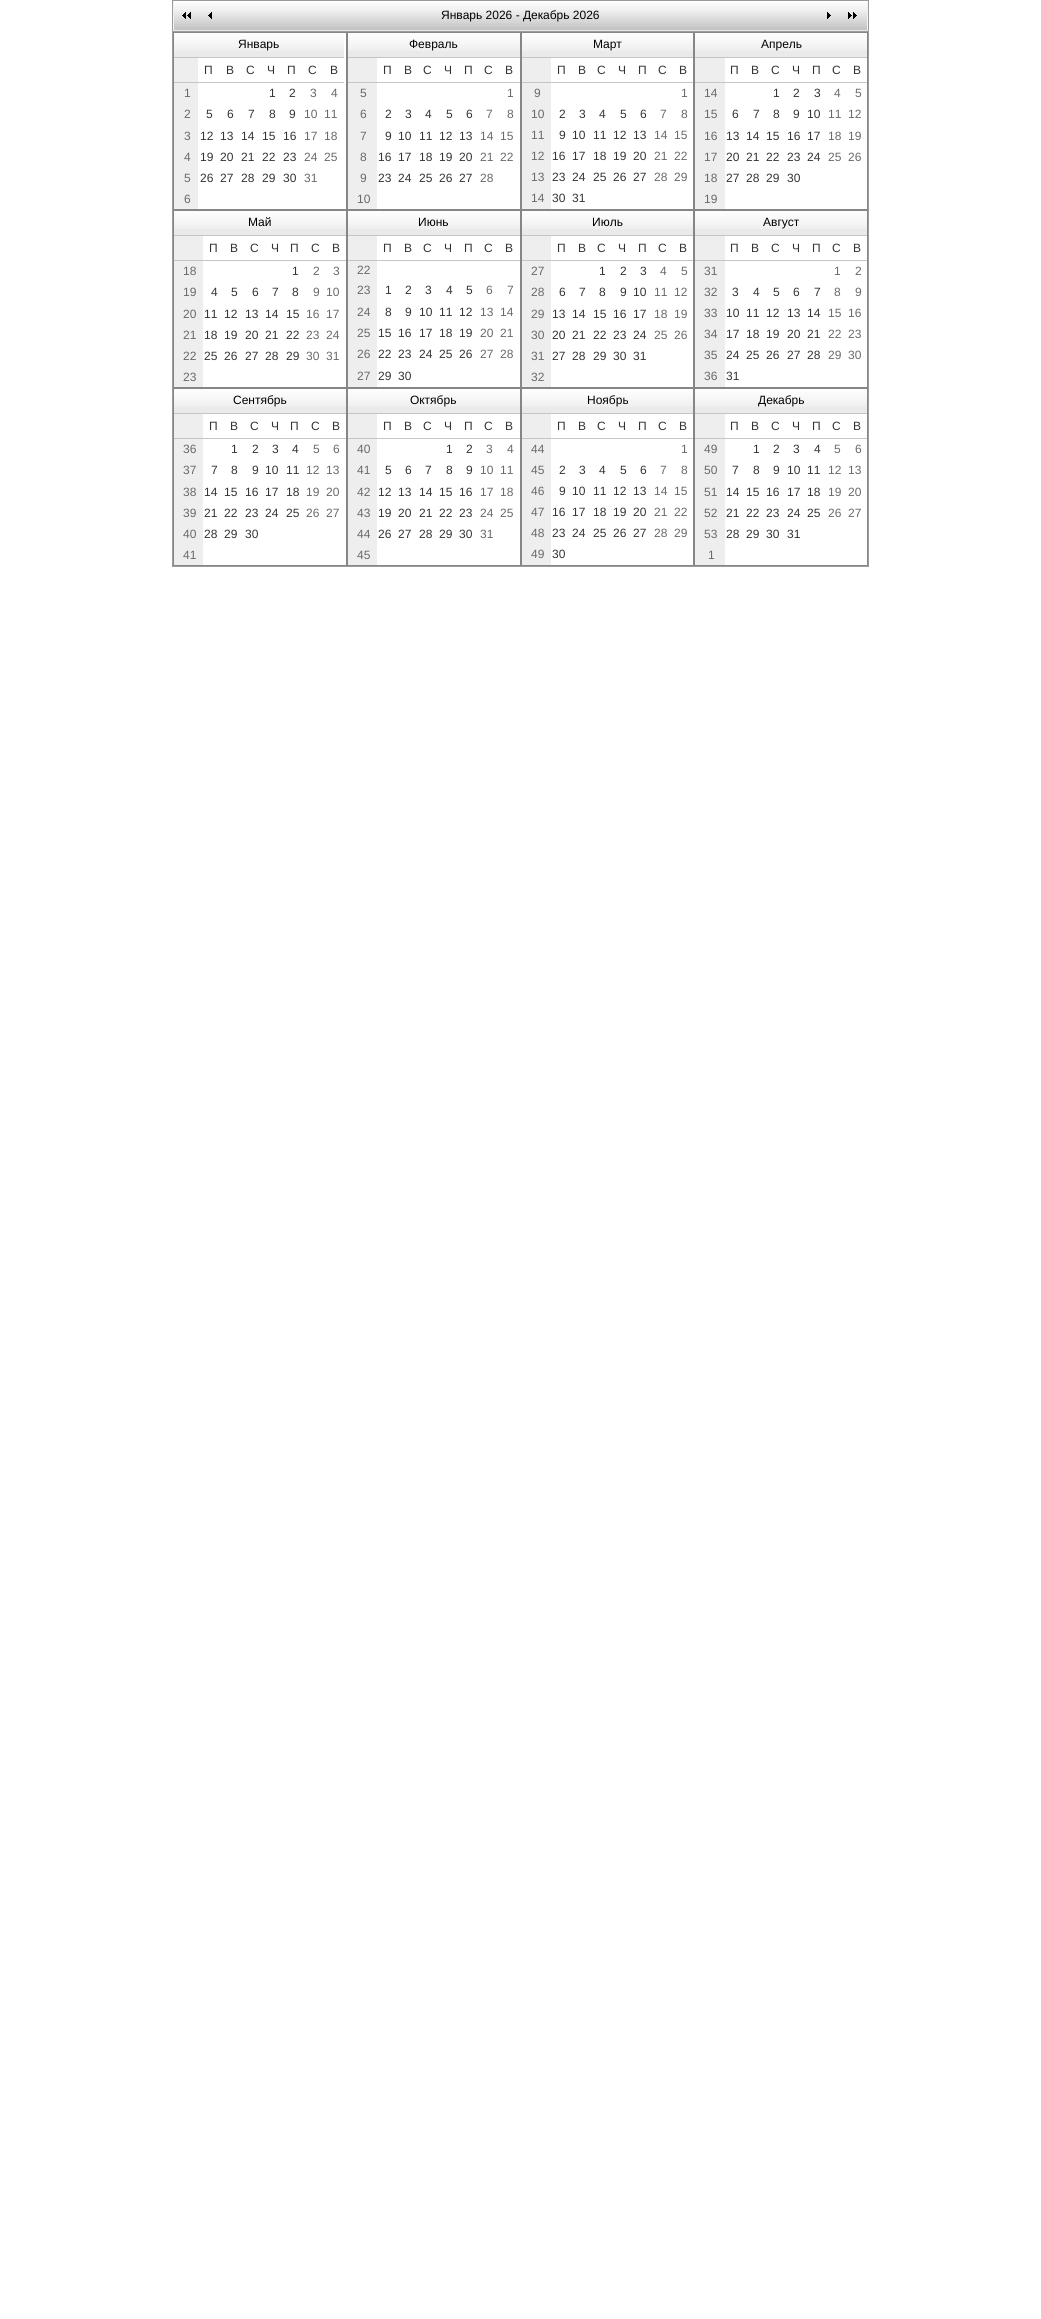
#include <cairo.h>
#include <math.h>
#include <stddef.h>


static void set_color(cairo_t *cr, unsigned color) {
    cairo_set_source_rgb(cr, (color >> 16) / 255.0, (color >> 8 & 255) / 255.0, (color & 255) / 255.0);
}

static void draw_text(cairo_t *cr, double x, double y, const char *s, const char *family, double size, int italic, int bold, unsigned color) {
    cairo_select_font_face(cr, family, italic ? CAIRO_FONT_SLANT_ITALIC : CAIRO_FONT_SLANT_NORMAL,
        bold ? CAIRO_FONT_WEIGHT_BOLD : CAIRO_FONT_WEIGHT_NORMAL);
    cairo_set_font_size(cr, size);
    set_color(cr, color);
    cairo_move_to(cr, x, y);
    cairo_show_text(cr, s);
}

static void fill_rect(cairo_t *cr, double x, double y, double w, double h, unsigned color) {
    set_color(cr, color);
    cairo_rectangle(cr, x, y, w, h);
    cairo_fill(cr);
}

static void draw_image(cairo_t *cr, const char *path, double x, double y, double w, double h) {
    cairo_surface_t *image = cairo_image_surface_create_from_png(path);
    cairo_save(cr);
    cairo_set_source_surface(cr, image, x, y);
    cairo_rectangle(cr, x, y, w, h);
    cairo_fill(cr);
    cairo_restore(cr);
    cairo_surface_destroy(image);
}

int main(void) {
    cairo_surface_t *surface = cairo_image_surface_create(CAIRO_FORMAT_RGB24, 1041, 2319);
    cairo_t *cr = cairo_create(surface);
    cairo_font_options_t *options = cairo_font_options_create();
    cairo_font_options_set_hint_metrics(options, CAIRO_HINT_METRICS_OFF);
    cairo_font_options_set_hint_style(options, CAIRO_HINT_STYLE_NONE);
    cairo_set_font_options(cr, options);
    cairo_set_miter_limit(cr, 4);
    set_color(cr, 0xFFFFFF);
    cairo_paint(cr);
    fill_rect(cr, 174, 27, 693, 3, 0xC5C5C5);
    draw_image(cr, "assets/img1.png", 174, 2, 693, 25);
    fill_rect(cr, 172, 0, 697, 1, 0x9A9A9A);
    fill_rect(cr, 868, 0, 1, 32, 0x9C9C9C);
    fill_rect(cr, 172, 31, 697, 1, 0x9C9C9C);
    fill_rect(cr, 172, 0, 1, 32, 0x9C9C9C);
    fill_rect(cr, 867, 1, 1, 30, 0xF3F3F3);
    fill_rect(cr, 173, 30, 695, 1, 0xE7E7E7);
    fill_rect(cr, 173, 1, 1, 30, 0xF3F3F3);
    draw_image(cr, "assets/img2.png", 182, 12, 9, 7);
    draw_image(cr, "assets/img3.png", 208, 12, 4, 7);
    draw_text(cr, 441, 19, "Январь 2026 - Декабрь 2026", "Liberation Sans", 12, 0, 0, 0x000000);
    draw_image(cr, "assets/img4.png", 827, 12, 4, 7);
    draw_image(cr, "assets/img5.png", 848, 12, 9, 7);
    fill_rect(cr, 868, 32, 1, 535, 0x9B9B9B);
    fill_rect(cr, 172, 566, 697, 1, 0x9B9B9B);
    fill_rect(cr, 172, 32, 1, 535, 0x9B9B9B);
    cairo_rectangle(cr, 173.5, 32.5, 173, 177);
    set_color(cr, 0x868686);
    cairo_set_line_width(cr, 1);
    cairo_stroke(cr);
    fill_rect(cr, 174, 51, 170, 6, 0xEAEAEA);
    draw_image(cr, "assets/img6.png", 174, 33, 170, 18);
    fill_rect(cr, 174, 57, 170, 1, 0xC4C4C4);
    draw_text(cr, 238, 48, "Январь", "Liberation Sans", 12, 0, 0, 0x000000);
    fill_rect(cr, 174, 58, 24, 24, 0xEEEEEE);
    fill_rect(cr, 174, 82, 170, 1, 0xC5C5C5);
    draw_text(cr, 204, 74, "П", "Liberation Sans", 12, 0, 0, 0x333333);
    draw_text(cr, 226, 74, "В", "Liberation Sans", 12, 0, 0, 0x333333);
    draw_text(cr, 246, 74, "С", "Liberation Sans", 12, 0, 0, 0x333333);
    draw_text(cr, 267, 74, "Ч", "Liberation Sans", 12, 0, 0, 0x333333);
    draw_text(cr, 287, 74, "П", "Liberation Sans", 12, 0, 0, 0x333333);
    draw_text(cr, 308, 74, "С", "Liberation Sans", 12, 0, 0, 0x333333);
    draw_text(cr, 330, 74, "В", "Liberation Sans", 12, 0, 0, 0x333333);
    fill_rect(cr, 174, 83, 24, 126, 0xEEEEEE);
    draw_text(cr, 184, 97, "1", "Liberation Sans", 12, 0, 0, 0x696969);
    draw_text(cr, 269, 97, "1", "Liberation Sans", 12, 0, 0, 0x333333);
    draw_text(cr, 289, 97, "2", "Liberation Sans", 12, 0, 0, 0x333333);
    draw_text(cr, 310, 97, "3", "Liberation Sans", 12, 0, 0, 0x696969);
    draw_text(cr, 331, 97, "4", "Liberation Sans", 12, 0, 0, 0x696969);
    draw_text(cr, 184, 118, "2", "Liberation Sans", 12, 0, 0, 0x696969);
    draw_text(cr, 206, 118, "5", "Liberation Sans", 12, 0, 0, 0x333333);
    draw_text(cr, 227, 118, "6", "Liberation Sans", 12, 0, 0, 0x333333);
    draw_text(cr, 248, 118, "7", "Liberation Sans", 12, 0, 0, 0x333333);
    draw_text(cr, 269, 118, "8", "Liberation Sans", 12, 0, 0, 0x333333);
    draw_text(cr, 289, 118, "9", "Liberation Sans", 12, 0, 0, 0x333333);
    draw_text(cr, 304, 118, "10", "Liberation Sans", 12, 0, 0, 0x696969);
    draw_text(cr, 324, 118, "11", "Liberation Sans", 12, 0, 0, 0x696969);
    draw_text(cr, 184, 140, "3", "Liberation Sans", 12, 0, 0, 0x696969);
    draw_text(cr, 200, 140, "12", "Liberation Sans", 12, 0, 0, 0x333333);
    draw_text(cr, 220, 140, "13", "Liberation Sans", 12, 0, 0, 0x333333);
    draw_text(cr, 241, 140, "14", "Liberation Sans", 12, 0, 0, 0x333333);
    draw_text(cr, 262, 140, "15", "Liberation Sans", 12, 0, 0, 0x333333);
    draw_text(cr, 283, 140, "16", "Liberation Sans", 12, 0, 0, 0x333333);
    draw_text(cr, 304, 140, "17", "Liberation Sans", 12, 0, 0, 0x696969);
    draw_text(cr, 324, 140, "18", "Liberation Sans", 12, 0, 0, 0x696969);
    draw_text(cr, 184, 161, "4", "Liberation Sans", 12, 0, 0, 0x696969);
    draw_text(cr, 200, 161, "19", "Liberation Sans", 12, 0, 0, 0x333333);
    draw_text(cr, 220, 161, "20", "Liberation Sans", 12, 0, 0, 0x333333);
    draw_text(cr, 241, 161, "21", "Liberation Sans", 12, 0, 0, 0x333333);
    draw_text(cr, 262, 161, "22", "Liberation Sans", 12, 0, 0, 0x333333);
    draw_text(cr, 283, 161, "23", "Liberation Sans", 12, 0, 0, 0x333333);
    draw_text(cr, 304, 161, "24", "Liberation Sans", 12, 0, 0, 0x696969);
    draw_text(cr, 324, 161, "25", "Liberation Sans", 12, 0, 0, 0x696969);
    draw_text(cr, 184, 182, "5", "Liberation Sans", 12, 0, 0, 0x696969);
    draw_text(cr, 200, 182, "26", "Liberation Sans", 12, 0, 0, 0x333333);
    draw_text(cr, 220, 182, "27", "Liberation Sans", 12, 0, 0, 0x333333);
    draw_text(cr, 241, 182, "28", "Liberation Sans", 12, 0, 0, 0x333333);
    draw_text(cr, 262, 182, "29", "Liberation Sans", 12, 0, 0, 0x333333);
    draw_text(cr, 283, 182, "30", "Liberation Sans", 12, 0, 0, 0x333333);
    draw_text(cr, 304, 182, "31", "Liberation Sans", 12, 0, 0, 0x696969);
    draw_text(cr, 184, 203, "6", "Liberation Sans", 12, 0, 0, 0x696969);
    cairo_rectangle(cr, 347.5, 32.5, 173, 177);
    set_color(cr, 0x868686);
    cairo_stroke(cr);
    fill_rect(cr, 348, 51, 172, 6, 0xEAEAEA);
    draw_image(cr, "assets/img7.png", 348, 33, 172, 18);
    fill_rect(cr, 348, 57, 172, 1, 0xC4C4C4);
    draw_text(cr, 409, 48, "Февраль", "Liberation Sans", 12, 0, 0, 0x000000);
    fill_rect(cr, 348, 58, 29, 24, 0xEEEEEE);
    fill_rect(cr, 348, 82, 172, 1, 0xC5C5C5);
    draw_text(cr, 383, 74, "П", "Liberation Sans", 12, 0, 0, 0x333333);
    draw_text(cr, 404, 74, "В", "Liberation Sans", 12, 0, 0, 0x333333);
    draw_text(cr, 423, 74, "С", "Liberation Sans", 12, 0, 0, 0x333333);
    draw_text(cr, 444, 74, "Ч", "Liberation Sans", 12, 0, 0, 0x333333);
    draw_text(cr, 464, 74, "П", "Liberation Sans", 12, 0, 0, 0x333333);
    draw_text(cr, 484, 74, "С", "Liberation Sans", 12, 0, 0, 0x333333);
    draw_text(cr, 505, 74, "В", "Liberation Sans", 12, 0, 0, 0x333333);
    fill_rect(cr, 348, 83, 29, 126, 0xEEEEEE);
    draw_text(cr, 360, 97, "5", "Liberation Sans", 12, 0, 0, 0x696969);
    draw_text(cr, 507, 97, "1", "Liberation Sans", 12, 0, 0, 0x696969);
    draw_text(cr, 360, 118, "6", "Liberation Sans", 12, 0, 0, 0x696969);
    draw_text(cr, 385, 118, "2", "Liberation Sans", 12, 0, 0, 0x333333);
    draw_text(cr, 405, 118, "3", "Liberation Sans", 12, 0, 0, 0x333333);
    draw_text(cr, 425, 118, "4", "Liberation Sans", 12, 0, 0, 0x333333);
    draw_text(cr, 446, 118, "5", "Liberation Sans", 12, 0, 0, 0x333333);
    draw_text(cr, 466, 118, "6", "Liberation Sans", 12, 0, 0, 0x333333);
    draw_text(cr, 486, 118, "7", "Liberation Sans", 12, 0, 0, 0x696969);
    draw_text(cr, 507, 118, "8", "Liberation Sans", 12, 0, 0, 0x696969);
    draw_text(cr, 360, 140, "7", "Liberation Sans", 12, 0, 0, 0x696969);
    draw_text(cr, 385, 140, "9", "Liberation Sans", 12, 0, 0, 0x333333);
    draw_text(cr, 398, 140, "10", "Liberation Sans", 12, 0, 0, 0x333333);
    draw_text(cr, 419, 140, "11", "Liberation Sans", 12, 0, 0, 0x333333);
    draw_text(cr, 439, 140, "12", "Liberation Sans", 12, 0, 0, 0x333333);
    draw_text(cr, 459, 140, "13", "Liberation Sans", 12, 0, 0, 0x333333);
    draw_text(cr, 480, 140, "14", "Liberation Sans", 12, 0, 0, 0x696969);
    draw_text(cr, 500, 140, "15", "Liberation Sans", 12, 0, 0, 0x696969);
    draw_text(cr, 360, 161, "8", "Liberation Sans", 12, 0, 0, 0x696969);
    draw_text(cr, 378, 161, "16", "Liberation Sans", 12, 0, 0, 0x333333);
    draw_text(cr, 398, 161, "17", "Liberation Sans", 12, 0, 0, 0x333333);
    draw_text(cr, 419, 161, "18", "Liberation Sans", 12, 0, 0, 0x333333);
    draw_text(cr, 439, 161, "19", "Liberation Sans", 12, 0, 0, 0x333333);
    draw_text(cr, 459, 161, "20", "Liberation Sans", 12, 0, 0, 0x333333);
    draw_text(cr, 480, 161, "21", "Liberation Sans", 12, 0, 0, 0x696969);
    draw_text(cr, 500, 161, "22", "Liberation Sans", 12, 0, 0, 0x696969);
    draw_text(cr, 360, 182, "9", "Liberation Sans", 12, 0, 0, 0x696969);
    draw_text(cr, 378, 182, "23", "Liberation Sans", 12, 0, 0, 0x333333);
    draw_text(cr, 398, 182, "24", "Liberation Sans", 12, 0, 0, 0x333333);
    draw_text(cr, 419, 182, "25", "Liberation Sans", 12, 0, 0, 0x333333);
    draw_text(cr, 439, 182, "26", "Liberation Sans", 12, 0, 0, 0x333333);
    draw_text(cr, 459, 182, "27", "Liberation Sans", 12, 0, 0, 0x333333);
    draw_text(cr, 480, 182, "28", "Liberation Sans", 12, 0, 0, 0x696969);
    draw_text(cr, 357, 203, "10", "Liberation Sans", 12, 0, 0, 0x696969);
    cairo_rectangle(cr, 521.5, 32.5, 172, 177);
    set_color(cr, 0x868686);
    cairo_stroke(cr);
    fill_rect(cr, 522, 51, 171, 6, 0xEAEAEA);
    draw_image(cr, "assets/img8.png", 522, 33, 171, 18);
    fill_rect(cr, 522, 57, 171, 1, 0xC4C4C4);
    draw_text(cr, 593, 48, "Март", "Liberation Sans", 12, 0, 0, 0x000000);
    fill_rect(cr, 522, 58, 29, 24, 0xEEEEEE);
    fill_rect(cr, 522, 82, 171, 1, 0xC5C5C5);
    draw_text(cr, 557, 74, "П", "Liberation Sans", 12, 0, 0, 0x333333);
    draw_text(cr, 578, 74, "В", "Liberation Sans", 12, 0, 0, 0x333333);
    draw_text(cr, 597, 74, "С", "Liberation Sans", 12, 0, 0, 0x333333);
    draw_text(cr, 618, 74, "Ч", "Liberation Sans", 12, 0, 0, 0x333333);
    draw_text(cr, 638, 74, "П", "Liberation Sans", 12, 0, 0, 0x333333);
    draw_text(cr, 658, 74, "С", "Liberation Sans", 12, 0, 0, 0x333333);
    draw_text(cr, 679, 74, "В", "Liberation Sans", 12, 0, 0, 0x333333);
    fill_rect(cr, 522, 83, 29, 126, 0xEEEEEE);
    draw_text(cr, 534, 97, "9", "Liberation Sans", 12, 0, 0, 0x696969);
    draw_text(cr, 681, 97, "1", "Liberation Sans", 12, 0, 0, 0x696969);
    draw_text(cr, 531, 118, "10", "Liberation Sans", 12, 0, 0, 0x696969);
    draw_text(cr, 559, 118, "2", "Liberation Sans", 12, 0, 0, 0x333333);
    draw_text(cr, 579, 118, "3", "Liberation Sans", 12, 0, 0, 0x333333);
    draw_text(cr, 599, 118, "4", "Liberation Sans", 12, 0, 0, 0x333333);
    draw_text(cr, 620, 118, "5", "Liberation Sans", 12, 0, 0, 0x333333);
    draw_text(cr, 640, 118, "6", "Liberation Sans", 12, 0, 0, 0x333333);
    draw_text(cr, 660, 118, "7", "Liberation Sans", 12, 0, 0, 0x696969);
    draw_text(cr, 681, 118, "8", "Liberation Sans", 12, 0, 0, 0x696969);
    draw_text(cr, 531, 139, "11", "Liberation Sans", 12, 0, 0, 0x696969);
    draw_text(cr, 559, 139, "9", "Liberation Sans", 12, 0, 0, 0x333333);
    draw_text(cr, 572, 139, "10", "Liberation Sans", 12, 0, 0, 0x333333);
    draw_text(cr, 593, 139, "11", "Liberation Sans", 12, 0, 0, 0x333333);
    draw_text(cr, 613, 139, "12", "Liberation Sans", 12, 0, 0, 0x333333);
    draw_text(cr, 633, 139, "13", "Liberation Sans", 12, 0, 0, 0x333333);
    draw_text(cr, 654, 139, "14", "Liberation Sans", 12, 0, 0, 0x696969);
    draw_text(cr, 674, 139, "15", "Liberation Sans", 12, 0, 0, 0x696969);
    draw_text(cr, 531, 160, "12", "Liberation Sans", 12, 0, 0, 0x696969);
    draw_text(cr, 552, 160, "16", "Liberation Sans", 12, 0, 0, 0x333333);
    draw_text(cr, 572, 160, "17", "Liberation Sans", 12, 0, 0, 0x333333);
    draw_text(cr, 593, 160, "18", "Liberation Sans", 12, 0, 0, 0x333333);
    draw_text(cr, 613, 160, "19", "Liberation Sans", 12, 0, 0, 0x333333);
    draw_text(cr, 633, 160, "20", "Liberation Sans", 12, 0, 0, 0x333333);
    draw_text(cr, 654, 160, "21", "Liberation Sans", 12, 0, 0, 0x696969);
    draw_text(cr, 674, 160, "22", "Liberation Sans", 12, 0, 0, 0x696969);
    draw_text(cr, 531, 181, "13", "Liberation Sans", 12, 0, 0, 0x696969);
    draw_text(cr, 552, 181, "23", "Liberation Sans", 12, 0, 0, 0x333333);
    draw_text(cr, 572, 181, "24", "Liberation Sans", 12, 0, 0, 0x333333);
    draw_text(cr, 593, 181, "25", "Liberation Sans", 12, 0, 0, 0x333333);
    draw_text(cr, 613, 181, "26", "Liberation Sans", 12, 0, 0, 0x333333);
    draw_text(cr, 633, 181, "27", "Liberation Sans", 12, 0, 0, 0x333333);
    draw_text(cr, 654, 181, "28", "Liberation Sans", 12, 0, 0, 0x696969);
    draw_text(cr, 674, 181, "29", "Liberation Sans", 12, 0, 0, 0x696969);
    draw_text(cr, 531, 202, "14", "Liberation Sans", 12, 0, 0, 0x696969);
    draw_text(cr, 552, 202, "30", "Liberation Sans", 12, 0, 0, 0x333333);
    draw_text(cr, 572, 202, "31", "Liberation Sans", 12, 0, 0, 0x333333);
    cairo_rectangle(cr, 694.5, 32.5, 173, 177);
    set_color(cr, 0x868686);
    cairo_stroke(cr);
    fill_rect(cr, 695, 51, 172, 6, 0xEAEAEA);
    draw_image(cr, "assets/img7.png", 695, 33, 172, 18);
    fill_rect(cr, 695, 57, 172, 1, 0xC4C4C4);
    draw_text(cr, 761, 48, "Апрель", "Liberation Sans", 12, 0, 0, 0x000000);
    fill_rect(cr, 695, 58, 30, 24, 0xEEEEEE);
    fill_rect(cr, 695, 82, 172, 1, 0xC5C5C5);
    draw_text(cr, 730, 74, "П", "Liberation Sans", 12, 0, 0, 0x333333);
    draw_text(cr, 751, 74, "В", "Liberation Sans", 12, 0, 0, 0x333333);
    draw_text(cr, 771, 74, "С", "Liberation Sans", 12, 0, 0, 0x333333);
    draw_text(cr, 792, 74, "Ч", "Liberation Sans", 12, 0, 0, 0x333333);
    draw_text(cr, 812, 74, "П", "Liberation Sans", 12, 0, 0, 0x333333);
    draw_text(cr, 832, 74, "С", "Liberation Sans", 12, 0, 0, 0x333333);
    draw_text(cr, 853, 74, "В", "Liberation Sans", 12, 0, 0, 0x333333);
    fill_rect(cr, 695, 83, 30, 126, 0xEEEEEE);
    draw_text(cr, 704, 97, "14", "Liberation Sans", 12, 0, 0, 0x696969);
    draw_text(cr, 773, 97, "1", "Liberation Sans", 12, 0, 0, 0x333333);
    draw_text(cr, 793, 97, "2", "Liberation Sans", 12, 0, 0, 0x333333);
    draw_text(cr, 814, 97, "3", "Liberation Sans", 12, 0, 0, 0x333333);
    draw_text(cr, 834, 97, "4", "Liberation Sans", 12, 0, 0, 0x696969);
    draw_text(cr, 855, 97, "5", "Liberation Sans", 12, 0, 0, 0x696969);
    draw_text(cr, 704, 118, "15", "Liberation Sans", 12, 0, 0, 0x696969);
    draw_text(cr, 732, 118, "6", "Liberation Sans", 12, 0, 0, 0x333333);
    draw_text(cr, 753, 118, "7", "Liberation Sans", 12, 0, 0, 0x333333);
    draw_text(cr, 773, 118, "8", "Liberation Sans", 12, 0, 0, 0x333333);
    draw_text(cr, 793, 118, "9", "Liberation Sans", 12, 0, 0, 0x333333);
    draw_text(cr, 807, 118, "10", "Liberation Sans", 12, 0, 0, 0x333333);
    draw_text(cr, 828, 118, "11", "Liberation Sans", 12, 0, 0, 0x696969);
    draw_text(cr, 848, 118, "12", "Liberation Sans", 12, 0, 0, 0x696969);
    draw_text(cr, 704, 140, "16", "Liberation Sans", 12, 0, 0, 0x696969);
    draw_text(cr, 726, 140, "13", "Liberation Sans", 12, 0, 0, 0x333333);
    draw_text(cr, 746, 140, "14", "Liberation Sans", 12, 0, 0, 0x333333);
    draw_text(cr, 766, 140, "15", "Liberation Sans", 12, 0, 0, 0x333333);
    draw_text(cr, 787, 140, "16", "Liberation Sans", 12, 0, 0, 0x333333);
    draw_text(cr, 807, 140, "17", "Liberation Sans", 12, 0, 0, 0x333333);
    draw_text(cr, 828, 140, "18", "Liberation Sans", 12, 0, 0, 0x696969);
    draw_text(cr, 848, 140, "19", "Liberation Sans", 12, 0, 0, 0x696969);
    draw_text(cr, 704, 161, "17", "Liberation Sans", 12, 0, 0, 0x696969);
    draw_text(cr, 726, 161, "20", "Liberation Sans", 12, 0, 0, 0x333333);
    draw_text(cr, 746, 161, "21", "Liberation Sans", 12, 0, 0, 0x333333);
    draw_text(cr, 766, 161, "22", "Liberation Sans", 12, 0, 0, 0x333333);
    draw_text(cr, 787, 161, "23", "Liberation Sans", 12, 0, 0, 0x333333);
    draw_text(cr, 807, 161, "24", "Liberation Sans", 12, 0, 0, 0x333333);
    draw_text(cr, 828, 161, "25", "Liberation Sans", 12, 0, 0, 0x696969);
    draw_text(cr, 848, 161, "26", "Liberation Sans", 12, 0, 0, 0x696969);
    draw_text(cr, 704, 182, "18", "Liberation Sans", 12, 0, 0, 0x696969);
    draw_text(cr, 726, 182, "27", "Liberation Sans", 12, 0, 0, 0x333333);
    draw_text(cr, 746, 182, "28", "Liberation Sans", 12, 0, 0, 0x333333);
    draw_text(cr, 766, 182, "29", "Liberation Sans", 12, 0, 0, 0x333333);
    draw_text(cr, 787, 182, "30", "Liberation Sans", 12, 0, 0, 0x333333);
    draw_text(cr, 704, 203, "19", "Liberation Sans", 12, 0, 0, 0x696969);
    cairo_rectangle(cr, 173.5, 210.5, 173, 177);
    set_color(cr, 0x868686);
    cairo_stroke(cr);
    fill_rect(cr, 174, 229, 172, 6, 0xEAEAEA);
    draw_image(cr, "assets/img7.png", 174, 211, 172, 18);
    fill_rect(cr, 174, 235, 172, 1, 0xC4C4C4);
    draw_text(cr, 248, 226, "Май", "Liberation Sans", 12, 0, 0, 0x000000);
    fill_rect(cr, 174, 236, 29, 24, 0xEEEEEE);
    fill_rect(cr, 174, 260, 172, 1, 0xC5C5C5);
    draw_text(cr, 209, 252, "П", "Liberation Sans", 12, 0, 0, 0x333333);
    draw_text(cr, 230, 252, "В", "Liberation Sans", 12, 0, 0, 0x333333);
    draw_text(cr, 250, 252, "С", "Liberation Sans", 12, 0, 0, 0x333333);
    draw_text(cr, 271, 252, "Ч", "Liberation Sans", 12, 0, 0, 0x333333);
    draw_text(cr, 290, 252, "П", "Liberation Sans", 12, 0, 0, 0x333333);
    draw_text(cr, 311, 252, "С", "Liberation Sans", 12, 0, 0, 0x333333);
    draw_text(cr, 332, 252, "В", "Liberation Sans", 12, 0, 0, 0x333333);
    fill_rect(cr, 174, 261, 29, 126, 0xEEEEEE);
    draw_text(cr, 183, 275, "18", "Liberation Sans", 12, 0, 0, 0x696969);
    draw_text(cr, 292, 275, "1", "Liberation Sans", 12, 0, 0, 0x333333);
    draw_text(cr, 313, 275, "2", "Liberation Sans", 12, 0, 0, 0x696969);
    draw_text(cr, 333, 275, "3", "Liberation Sans", 12, 0, 0, 0x696969);
    draw_text(cr, 183, 296, "19", "Liberation Sans", 12, 0, 0, 0x696969);
    draw_text(cr, 211, 296, "4", "Liberation Sans", 12, 0, 0, 0x333333);
    draw_text(cr, 231, 296, "5", "Liberation Sans", 12, 0, 0, 0x333333);
    draw_text(cr, 252, 296, "6", "Liberation Sans", 12, 0, 0, 0x333333);
    draw_text(cr, 272, 296, "7", "Liberation Sans", 12, 0, 0, 0x333333);
    draw_text(cr, 292, 296, "8", "Liberation Sans", 12, 0, 0, 0x333333);
    draw_text(cr, 313, 296, "9", "Liberation Sans", 12, 0, 0, 0x696969);
    draw_text(cr, 326, 296, "10", "Liberation Sans", 12, 0, 0, 0x696969);
    draw_text(cr, 183, 318, "20", "Liberation Sans", 12, 0, 0, 0x696969);
    draw_text(cr, 204, 318, "11", "Liberation Sans", 12, 0, 0, 0x333333);
    draw_text(cr, 224, 318, "12", "Liberation Sans", 12, 0, 0, 0x333333);
    draw_text(cr, 245, 318, "13", "Liberation Sans", 12, 0, 0, 0x333333);
    draw_text(cr, 265, 318, "14", "Liberation Sans", 12, 0, 0, 0x333333);
    draw_text(cr, 286, 318, "15", "Liberation Sans", 12, 0, 0, 0x333333);
    draw_text(cr, 306, 318, "16", "Liberation Sans", 12, 0, 0, 0x696969);
    draw_text(cr, 326, 318, "17", "Liberation Sans", 12, 0, 0, 0x696969);
    draw_text(cr, 183, 339, "21", "Liberation Sans", 12, 0, 0, 0x696969);
    draw_text(cr, 204, 339, "18", "Liberation Sans", 12, 0, 0, 0x333333);
    draw_text(cr, 224, 339, "19", "Liberation Sans", 12, 0, 0, 0x333333);
    draw_text(cr, 245, 339, "20", "Liberation Sans", 12, 0, 0, 0x333333);
    draw_text(cr, 265, 339, "21", "Liberation Sans", 12, 0, 0, 0x333333);
    draw_text(cr, 286, 339, "22", "Liberation Sans", 12, 0, 0, 0x333333);
    draw_text(cr, 306, 339, "23", "Liberation Sans", 12, 0, 0, 0x696969);
    draw_text(cr, 326, 339, "24", "Liberation Sans", 12, 0, 0, 0x696969);
    draw_text(cr, 183, 360, "22", "Liberation Sans", 12, 0, 0, 0x696969);
    draw_text(cr, 204, 360, "25", "Liberation Sans", 12, 0, 0, 0x333333);
    draw_text(cr, 224, 360, "26", "Liberation Sans", 12, 0, 0, 0x333333);
    draw_text(cr, 245, 360, "27", "Liberation Sans", 12, 0, 0, 0x333333);
    draw_text(cr, 265, 360, "28", "Liberation Sans", 12, 0, 0, 0x333333);
    draw_text(cr, 286, 360, "29", "Liberation Sans", 12, 0, 0, 0x333333);
    draw_text(cr, 306, 360, "30", "Liberation Sans", 12, 0, 0, 0x696969);
    draw_text(cr, 326, 360, "31", "Liberation Sans", 12, 0, 0, 0x696969);
    draw_text(cr, 183, 381, "23", "Liberation Sans", 12, 0, 0, 0x696969);
    cairo_rectangle(cr, 347.5, 210.5, 173, 177);
    set_color(cr, 0x868686);
    cairo_stroke(cr);
    fill_rect(cr, 348, 229, 172, 6, 0xEAEAEA);
    draw_image(cr, "assets/img7.png", 348, 211, 172, 18);
    fill_rect(cr, 348, 235, 172, 1, 0xC4C4C4);
    draw_text(cr, 418, 226, "Июнь", "Liberation Sans", 12, 0, 0, 0x000000);
    fill_rect(cr, 348, 236, 29, 24, 0xEEEEEE);
    fill_rect(cr, 348, 260, 172, 1, 0xC5C5C5);
    draw_text(cr, 383, 252, "П", "Liberation Sans", 12, 0, 0, 0x333333);
    draw_text(cr, 404, 252, "В", "Liberation Sans", 12, 0, 0, 0x333333);
    draw_text(cr, 423, 252, "С", "Liberation Sans", 12, 0, 0, 0x333333);
    draw_text(cr, 444, 252, "Ч", "Liberation Sans", 12, 0, 0, 0x333333);
    draw_text(cr, 464, 252, "П", "Liberation Sans", 12, 0, 0, 0x333333);
    draw_text(cr, 484, 252, "С", "Liberation Sans", 12, 0, 0, 0x333333);
    draw_text(cr, 505, 252, "В", "Liberation Sans", 12, 0, 0, 0x333333);
    fill_rect(cr, 348, 261, 29, 126, 0xEEEEEE);
    draw_text(cr, 357, 274, "22", "Liberation Sans", 12, 0, 0, 0x696969);
    draw_text(cr, 357, 294, "23", "Liberation Sans", 12, 0, 0, 0x696969);
    draw_text(cr, 385, 294, "1", "Liberation Sans", 12, 0, 0, 0x333333);
    draw_text(cr, 405, 294, "2", "Liberation Sans", 12, 0, 0, 0x333333);
    draw_text(cr, 425, 294, "3", "Liberation Sans", 12, 0, 0, 0x333333);
    draw_text(cr, 446, 294, "4", "Liberation Sans", 12, 0, 0, 0x333333);
    draw_text(cr, 466, 294, "5", "Liberation Sans", 12, 0, 0, 0x333333);
    draw_text(cr, 486, 294, "6", "Liberation Sans", 12, 0, 0, 0x696969);
    draw_text(cr, 507, 294, "7", "Liberation Sans", 12, 0, 0, 0x696969);
    draw_text(cr, 357, 316, "24", "Liberation Sans", 12, 0, 0, 0x696969);
    draw_text(cr, 385, 316, "8", "Liberation Sans", 12, 0, 0, 0x333333);
    draw_text(cr, 405, 316, "9", "Liberation Sans", 12, 0, 0, 0x333333);
    draw_text(cr, 419, 316, "10", "Liberation Sans", 12, 0, 0, 0x333333);
    draw_text(cr, 439, 316, "11", "Liberation Sans", 12, 0, 0, 0x333333);
    draw_text(cr, 459, 316, "12", "Liberation Sans", 12, 0, 0, 0x333333);
    draw_text(cr, 480, 316, "13", "Liberation Sans", 12, 0, 0, 0x696969);
    draw_text(cr, 500, 316, "14", "Liberation Sans", 12, 0, 0, 0x696969);
    draw_text(cr, 357, 337, "25", "Liberation Sans", 12, 0, 0, 0x696969);
    draw_text(cr, 378, 337, "15", "Liberation Sans", 12, 0, 0, 0x333333);
    draw_text(cr, 398, 337, "16", "Liberation Sans", 12, 0, 0, 0x333333);
    draw_text(cr, 419, 337, "17", "Liberation Sans", 12, 0, 0, 0x333333);
    draw_text(cr, 439, 337, "18", "Liberation Sans", 12, 0, 0, 0x333333);
    draw_text(cr, 459, 337, "19", "Liberation Sans", 12, 0, 0, 0x333333);
    draw_text(cr, 480, 337, "20", "Liberation Sans", 12, 0, 0, 0x696969);
    draw_text(cr, 500, 337, "21", "Liberation Sans", 12, 0, 0, 0x696969);
    draw_text(cr, 357, 358, "26", "Liberation Sans", 12, 0, 0, 0x696969);
    draw_text(cr, 378, 358, "22", "Liberation Sans", 12, 0, 0, 0x333333);
    draw_text(cr, 398, 358, "23", "Liberation Sans", 12, 0, 0, 0x333333);
    draw_text(cr, 419, 358, "24", "Liberation Sans", 12, 0, 0, 0x333333);
    draw_text(cr, 439, 358, "25", "Liberation Sans", 12, 0, 0, 0x333333);
    draw_text(cr, 459, 358, "26", "Liberation Sans", 12, 0, 0, 0x333333);
    draw_text(cr, 480, 358, "27", "Liberation Sans", 12, 0, 0, 0x696969);
    draw_text(cr, 500, 358, "28", "Liberation Sans", 12, 0, 0, 0x696969);
    draw_text(cr, 357, 380, "27", "Liberation Sans", 12, 0, 0, 0x696969);
    draw_text(cr, 378, 380, "29", "Liberation Sans", 12, 0, 0, 0x333333);
    draw_text(cr, 398, 380, "30", "Liberation Sans", 12, 0, 0, 0x333333);
    cairo_rectangle(cr, 521.5, 210.5, 172, 177);
    set_color(cr, 0x868686);
    cairo_stroke(cr);
    fill_rect(cr, 522, 229, 171, 6, 0xEAEAEA);
    draw_image(cr, "assets/img8.png", 522, 211, 171, 18);
    fill_rect(cr, 522, 235, 171, 1, 0xC4C4C4);
    draw_text(cr, 592, 226, "Июль", "Liberation Sans", 12, 0, 0, 0x000000);
    fill_rect(cr, 522, 236, 29, 24, 0xEEEEEE);
    fill_rect(cr, 522, 260, 171, 1, 0xC5C5C5);
    draw_text(cr, 557, 252, "П", "Liberation Sans", 12, 0, 0, 0x333333);
    draw_text(cr, 578, 252, "В", "Liberation Sans", 12, 0, 0, 0x333333);
    draw_text(cr, 597, 252, "С", "Liberation Sans", 12, 0, 0, 0x333333);
    draw_text(cr, 618, 252, "Ч", "Liberation Sans", 12, 0, 0, 0x333333);
    draw_text(cr, 638, 252, "П", "Liberation Sans", 12, 0, 0, 0x333333);
    draw_text(cr, 658, 252, "С", "Liberation Sans", 12, 0, 0, 0x333333);
    draw_text(cr, 679, 252, "В", "Liberation Sans", 12, 0, 0, 0x333333);
    fill_rect(cr, 522, 261, 29, 126, 0xEEEEEE);
    draw_text(cr, 531, 275, "27", "Liberation Sans", 12, 0, 0, 0x696969);
    draw_text(cr, 599, 275, "1", "Liberation Sans", 12, 0, 0, 0x333333);
    draw_text(cr, 620, 275, "2", "Liberation Sans", 12, 0, 0, 0x333333);
    draw_text(cr, 640, 275, "3", "Liberation Sans", 12, 0, 0, 0x333333);
    draw_text(cr, 660, 275, "4", "Liberation Sans", 12, 0, 0, 0x696969);
    draw_text(cr, 681, 275, "5", "Liberation Sans", 12, 0, 0, 0x696969);
    draw_text(cr, 531, 296, "28", "Liberation Sans", 12, 0, 0, 0x696969);
    draw_text(cr, 559, 296, "6", "Liberation Sans", 12, 0, 0, 0x333333);
    draw_text(cr, 579, 296, "7", "Liberation Sans", 12, 0, 0, 0x333333);
    draw_text(cr, 599, 296, "8", "Liberation Sans", 12, 0, 0, 0x333333);
    draw_text(cr, 620, 296, "9", "Liberation Sans", 12, 0, 0, 0x333333);
    draw_text(cr, 633, 296, "10", "Liberation Sans", 12, 0, 0, 0x333333);
    draw_text(cr, 654, 296, "11", "Liberation Sans", 12, 0, 0, 0x696969);
    draw_text(cr, 674, 296, "12", "Liberation Sans", 12, 0, 0, 0x696969);
    draw_text(cr, 531, 318, "29", "Liberation Sans", 12, 0, 0, 0x696969);
    draw_text(cr, 552, 318, "13", "Liberation Sans", 12, 0, 0, 0x333333);
    draw_text(cr, 572, 318, "14", "Liberation Sans", 12, 0, 0, 0x333333);
    draw_text(cr, 593, 318, "15", "Liberation Sans", 12, 0, 0, 0x333333);
    draw_text(cr, 613, 318, "16", "Liberation Sans", 12, 0, 0, 0x333333);
    draw_text(cr, 633, 318, "17", "Liberation Sans", 12, 0, 0, 0x333333);
    draw_text(cr, 654, 318, "18", "Liberation Sans", 12, 0, 0, 0x696969);
    draw_text(cr, 674, 318, "19", "Liberation Sans", 12, 0, 0, 0x696969);
    draw_text(cr, 531, 339, "30", "Liberation Sans", 12, 0, 0, 0x696969);
    draw_text(cr, 552, 339, "20", "Liberation Sans", 12, 0, 0, 0x333333);
    draw_text(cr, 572, 339, "21", "Liberation Sans", 12, 0, 0, 0x333333);
    draw_text(cr, 593, 339, "22", "Liberation Sans", 12, 0, 0, 0x333333);
    draw_text(cr, 613, 339, "23", "Liberation Sans", 12, 0, 0, 0x333333);
    draw_text(cr, 633, 339, "24", "Liberation Sans", 12, 0, 0, 0x333333);
    draw_text(cr, 654, 339, "25", "Liberation Sans", 12, 0, 0, 0x696969);
    draw_text(cr, 674, 339, "26", "Liberation Sans", 12, 0, 0, 0x696969);
    draw_text(cr, 531, 360, "31", "Liberation Sans", 12, 0, 0, 0x696969);
    draw_text(cr, 552, 360, "27", "Liberation Sans", 12, 0, 0, 0x333333);
    draw_text(cr, 572, 360, "28", "Liberation Sans", 12, 0, 0, 0x333333);
    draw_text(cr, 593, 360, "29", "Liberation Sans", 12, 0, 0, 0x333333);
    draw_text(cr, 613, 360, "30", "Liberation Sans", 12, 0, 0, 0x333333);
    draw_text(cr, 633, 360, "31", "Liberation Sans", 12, 0, 0, 0x333333);
    draw_text(cr, 531, 381, "32", "Liberation Sans", 12, 0, 0, 0x696969);
    cairo_rectangle(cr, 694.5, 210.5, 173, 177);
    set_color(cr, 0x868686);
    cairo_stroke(cr);
    fill_rect(cr, 695, 229, 172, 6, 0xEAEAEA);
    draw_image(cr, "assets/img7.png", 695, 211, 172, 18);
    fill_rect(cr, 695, 235, 172, 1, 0xC4C4C4);
    draw_text(cr, 763, 226, "Август", "Liberation Sans", 12, 0, 0, 0x000000);
    fill_rect(cr, 695, 236, 30, 24, 0xEEEEEE);
    fill_rect(cr, 695, 260, 172, 1, 0xC5C5C5);
    draw_text(cr, 730, 252, "П", "Liberation Sans", 12, 0, 0, 0x333333);
    draw_text(cr, 751, 252, "В", "Liberation Sans", 12, 0, 0, 0x333333);
    draw_text(cr, 771, 252, "С", "Liberation Sans", 12, 0, 0, 0x333333);
    draw_text(cr, 792, 252, "Ч", "Liberation Sans", 12, 0, 0, 0x333333);
    draw_text(cr, 812, 252, "П", "Liberation Sans", 12, 0, 0, 0x333333);
    draw_text(cr, 832, 252, "С", "Liberation Sans", 12, 0, 0, 0x333333);
    draw_text(cr, 853, 252, "В", "Liberation Sans", 12, 0, 0, 0x333333);
    fill_rect(cr, 695, 261, 30, 126, 0xEEEEEE);
    draw_text(cr, 704, 275, "31", "Liberation Sans", 12, 0, 0, 0x696969);
    draw_text(cr, 834, 275, "1", "Liberation Sans", 12, 0, 0, 0x696969);
    draw_text(cr, 855, 275, "2", "Liberation Sans", 12, 0, 0, 0x696969);
    draw_text(cr, 704, 296, "32", "Liberation Sans", 12, 0, 0, 0x696969);
    draw_text(cr, 732, 296, "3", "Liberation Sans", 12, 0, 0, 0x333333);
    draw_text(cr, 753, 296, "4", "Liberation Sans", 12, 0, 0, 0x333333);
    draw_text(cr, 773, 296, "5", "Liberation Sans", 12, 0, 0, 0x333333);
    draw_text(cr, 793, 296, "6", "Liberation Sans", 12, 0, 0, 0x333333);
    draw_text(cr, 814, 296, "7", "Liberation Sans", 12, 0, 0, 0x333333);
    draw_text(cr, 834, 296, "8", "Liberation Sans", 12, 0, 0, 0x696969);
    draw_text(cr, 855, 296, "9", "Liberation Sans", 12, 0, 0, 0x696969);
    draw_text(cr, 704, 317, "33", "Liberation Sans", 12, 0, 0, 0x696969);
    draw_text(cr, 726, 317, "10", "Liberation Sans", 12, 0, 0, 0x333333);
    draw_text(cr, 746, 317, "11", "Liberation Sans", 12, 0, 0, 0x333333);
    draw_text(cr, 766, 317, "12", "Liberation Sans", 12, 0, 0, 0x333333);
    draw_text(cr, 787, 317, "13", "Liberation Sans", 12, 0, 0, 0x333333);
    draw_text(cr, 807, 317, "14", "Liberation Sans", 12, 0, 0, 0x333333);
    draw_text(cr, 828, 317, "15", "Liberation Sans", 12, 0, 0, 0x696969);
    draw_text(cr, 848, 317, "16", "Liberation Sans", 12, 0, 0, 0x696969);
    draw_text(cr, 704, 338, "34", "Liberation Sans", 12, 0, 0, 0x696969);
    draw_text(cr, 726, 338, "17", "Liberation Sans", 12, 0, 0, 0x333333);
    draw_text(cr, 746, 338, "18", "Liberation Sans", 12, 0, 0, 0x333333);
    draw_text(cr, 766, 338, "19", "Liberation Sans", 12, 0, 0, 0x333333);
    draw_text(cr, 787, 338, "20", "Liberation Sans", 12, 0, 0, 0x333333);
    draw_text(cr, 807, 338, "21", "Liberation Sans", 12, 0, 0, 0x333333);
    draw_text(cr, 828, 338, "22", "Liberation Sans", 12, 0, 0, 0x696969);
    draw_text(cr, 848, 338, "23", "Liberation Sans", 12, 0, 0, 0x696969);
    draw_text(cr, 704, 359, "35", "Liberation Sans", 12, 0, 0, 0x696969);
    draw_text(cr, 726, 359, "24", "Liberation Sans", 12, 0, 0, 0x333333);
    draw_text(cr, 746, 359, "25", "Liberation Sans", 12, 0, 0, 0x333333);
    draw_text(cr, 766, 359, "26", "Liberation Sans", 12, 0, 0, 0x333333);
    draw_text(cr, 787, 359, "27", "Liberation Sans", 12, 0, 0, 0x333333);
    draw_text(cr, 807, 359, "28", "Liberation Sans", 12, 0, 0, 0x333333);
    draw_text(cr, 828, 359, "29", "Liberation Sans", 12, 0, 0, 0x696969);
    draw_text(cr, 848, 359, "30", "Liberation Sans", 12, 0, 0, 0x696969);
    draw_text(cr, 704, 380, "36", "Liberation Sans", 12, 0, 0, 0x696969);
    draw_text(cr, 726, 380, "31", "Liberation Sans", 12, 0, 0, 0x333333);
    cairo_rectangle(cr, 173.5, 388.5, 173, 177);
    set_color(cr, 0x868686);
    cairo_stroke(cr);
    fill_rect(cr, 174, 407, 172, 6, 0xEAEAEA);
    draw_image(cr, "assets/img7.png", 174, 389, 172, 18);
    fill_rect(cr, 174, 413, 172, 1, 0xC4C4C4);
    draw_text(cr, 233, 404, "Сентябрь", "Liberation Sans", 12, 0, 0, 0x000000);
    fill_rect(cr, 174, 414, 29, 24, 0xEEEEEE);
    fill_rect(cr, 174, 438, 172, 1, 0xC5C5C5);
    draw_text(cr, 209, 430, "П", "Liberation Sans", 12, 0, 0, 0x333333);
    draw_text(cr, 230, 430, "В", "Liberation Sans", 12, 0, 0, 0x333333);
    draw_text(cr, 250, 430, "С", "Liberation Sans", 12, 0, 0, 0x333333);
    draw_text(cr, 271, 430, "Ч", "Liberation Sans", 12, 0, 0, 0x333333);
    draw_text(cr, 290, 430, "П", "Liberation Sans", 12, 0, 0, 0x333333);
    draw_text(cr, 311, 430, "С", "Liberation Sans", 12, 0, 0, 0x333333);
    draw_text(cr, 332, 430, "В", "Liberation Sans", 12, 0, 0, 0x333333);
    fill_rect(cr, 174, 439, 29, 126, 0xEEEEEE);
    draw_text(cr, 183, 453, "36", "Liberation Sans", 12, 0, 0, 0x696969);
    draw_text(cr, 231, 453, "1", "Liberation Sans", 12, 0, 0, 0x333333);
    draw_text(cr, 252, 453, "2", "Liberation Sans", 12, 0, 0, 0x333333);
    draw_text(cr, 272, 453, "3", "Liberation Sans", 12, 0, 0, 0x333333);
    draw_text(cr, 292, 453, "4", "Liberation Sans", 12, 0, 0, 0x333333);
    draw_text(cr, 313, 453, "5", "Liberation Sans", 12, 0, 0, 0x696969);
    draw_text(cr, 333, 453, "6", "Liberation Sans", 12, 0, 0, 0x696969);
    draw_text(cr, 183, 474, "37", "Liberation Sans", 12, 0, 0, 0x696969);
    draw_text(cr, 211, 474, "7", "Liberation Sans", 12, 0, 0, 0x333333);
    draw_text(cr, 231, 474, "8", "Liberation Sans", 12, 0, 0, 0x333333);
    draw_text(cr, 252, 474, "9", "Liberation Sans", 12, 0, 0, 0x333333);
    draw_text(cr, 265, 474, "10", "Liberation Sans", 12, 0, 0, 0x333333);
    draw_text(cr, 286, 474, "11", "Liberation Sans", 12, 0, 0, 0x333333);
    draw_text(cr, 306, 474, "12", "Liberation Sans", 12, 0, 0, 0x696969);
    draw_text(cr, 326, 474, "13", "Liberation Sans", 12, 0, 0, 0x696969);
    draw_text(cr, 183, 496, "38", "Liberation Sans", 12, 0, 0, 0x696969);
    draw_text(cr, 204, 496, "14", "Liberation Sans", 12, 0, 0, 0x333333);
    draw_text(cr, 224, 496, "15", "Liberation Sans", 12, 0, 0, 0x333333);
    draw_text(cr, 245, 496, "16", "Liberation Sans", 12, 0, 0, 0x333333);
    draw_text(cr, 265, 496, "17", "Liberation Sans", 12, 0, 0, 0x333333);
    draw_text(cr, 286, 496, "18", "Liberation Sans", 12, 0, 0, 0x333333);
    draw_text(cr, 306, 496, "19", "Liberation Sans", 12, 0, 0, 0x696969);
    draw_text(cr, 326, 496, "20", "Liberation Sans", 12, 0, 0, 0x696969);
    draw_text(cr, 183, 517, "39", "Liberation Sans", 12, 0, 0, 0x696969);
    draw_text(cr, 204, 517, "21", "Liberation Sans", 12, 0, 0, 0x333333);
    draw_text(cr, 224, 517, "22", "Liberation Sans", 12, 0, 0, 0x333333);
    draw_text(cr, 245, 517, "23", "Liberation Sans", 12, 0, 0, 0x333333);
    draw_text(cr, 265, 517, "24", "Liberation Sans", 12, 0, 0, 0x333333);
    draw_text(cr, 286, 517, "25", "Liberation Sans", 12, 0, 0, 0x333333);
    draw_text(cr, 306, 517, "26", "Liberation Sans", 12, 0, 0, 0x696969);
    draw_text(cr, 326, 517, "27", "Liberation Sans", 12, 0, 0, 0x696969);
    draw_text(cr, 183, 538, "40", "Liberation Sans", 12, 0, 0, 0x696969);
    draw_text(cr, 204, 538, "28", "Liberation Sans", 12, 0, 0, 0x333333);
    draw_text(cr, 224, 538, "29", "Liberation Sans", 12, 0, 0, 0x333333);
    draw_text(cr, 245, 538, "30", "Liberation Sans", 12, 0, 0, 0x333333);
    draw_text(cr, 183, 559, "41", "Liberation Sans", 12, 0, 0, 0x696969);
    cairo_rectangle(cr, 347.5, 388.5, 173, 177);
    set_color(cr, 0x868686);
    cairo_stroke(cr);
    fill_rect(cr, 348, 407, 172, 6, 0xEAEAEA);
    draw_image(cr, "assets/img7.png", 348, 389, 172, 18);
    fill_rect(cr, 348, 413, 172, 1, 0xC4C4C4);
    draw_text(cr, 410, 404, "Октябрь", "Liberation Sans", 12, 0, 0, 0x000000);
    fill_rect(cr, 348, 414, 29, 24, 0xEEEEEE);
    fill_rect(cr, 348, 438, 172, 1, 0xC5C5C5);
    draw_text(cr, 383, 430, "П", "Liberation Sans", 12, 0, 0, 0x333333);
    draw_text(cr, 404, 430, "В", "Liberation Sans", 12, 0, 0, 0x333333);
    draw_text(cr, 423, 430, "С", "Liberation Sans", 12, 0, 0, 0x333333);
    draw_text(cr, 444, 430, "Ч", "Liberation Sans", 12, 0, 0, 0x333333);
    draw_text(cr, 464, 430, "П", "Liberation Sans", 12, 0, 0, 0x333333);
    draw_text(cr, 484, 430, "С", "Liberation Sans", 12, 0, 0, 0x333333);
    draw_text(cr, 505, 430, "В", "Liberation Sans", 12, 0, 0, 0x333333);
    fill_rect(cr, 348, 439, 29, 126, 0xEEEEEE);
    draw_text(cr, 357, 453, "40", "Liberation Sans", 12, 0, 0, 0x696969);
    draw_text(cr, 446, 453, "1", "Liberation Sans", 12, 0, 0, 0x333333);
    draw_text(cr, 466, 453, "2", "Liberation Sans", 12, 0, 0, 0x333333);
    draw_text(cr, 486, 453, "3", "Liberation Sans", 12, 0, 0, 0x696969);
    draw_text(cr, 507, 453, "4", "Liberation Sans", 12, 0, 0, 0x696969);
    draw_text(cr, 357, 474, "41", "Liberation Sans", 12, 0, 0, 0x696969);
    draw_text(cr, 385, 474, "5", "Liberation Sans", 12, 0, 0, 0x333333);
    draw_text(cr, 405, 474, "6", "Liberation Sans", 12, 0, 0, 0x333333);
    draw_text(cr, 425, 474, "7", "Liberation Sans", 12, 0, 0, 0x333333);
    draw_text(cr, 446, 474, "8", "Liberation Sans", 12, 0, 0, 0x333333);
    draw_text(cr, 466, 474, "9", "Liberation Sans", 12, 0, 0, 0x333333);
    draw_text(cr, 480, 474, "10", "Liberation Sans", 12, 0, 0, 0x696969);
    draw_text(cr, 500, 474, "11", "Liberation Sans", 12, 0, 0, 0x696969);
    draw_text(cr, 357, 496, "42", "Liberation Sans", 12, 0, 0, 0x696969);
    draw_text(cr, 378, 496, "12", "Liberation Sans", 12, 0, 0, 0x333333);
    draw_text(cr, 398, 496, "13", "Liberation Sans", 12, 0, 0, 0x333333);
    draw_text(cr, 419, 496, "14", "Liberation Sans", 12, 0, 0, 0x333333);
    draw_text(cr, 439, 496, "15", "Liberation Sans", 12, 0, 0, 0x333333);
    draw_text(cr, 459, 496, "16", "Liberation Sans", 12, 0, 0, 0x333333);
    draw_text(cr, 480, 496, "17", "Liberation Sans", 12, 0, 0, 0x696969);
    draw_text(cr, 500, 496, "18", "Liberation Sans", 12, 0, 0, 0x696969);
    draw_text(cr, 357, 517, "43", "Liberation Sans", 12, 0, 0, 0x696969);
    draw_text(cr, 378, 517, "19", "Liberation Sans", 12, 0, 0, 0x333333);
    draw_text(cr, 398, 517, "20", "Liberation Sans", 12, 0, 0, 0x333333);
    draw_text(cr, 419, 517, "21", "Liberation Sans", 12, 0, 0, 0x333333);
    draw_text(cr, 439, 517, "22", "Liberation Sans", 12, 0, 0, 0x333333);
    draw_text(cr, 459, 517, "23", "Liberation Sans", 12, 0, 0, 0x333333);
    draw_text(cr, 480, 517, "24", "Liberation Sans", 12, 0, 0, 0x696969);
    draw_text(cr, 500, 517, "25", "Liberation Sans", 12, 0, 0, 0x696969);
    draw_text(cr, 357, 538, "44", "Liberation Sans", 12, 0, 0, 0x696969);
    draw_text(cr, 378, 538, "26", "Liberation Sans", 12, 0, 0, 0x333333);
    draw_text(cr, 398, 538, "27", "Liberation Sans", 12, 0, 0, 0x333333);
    draw_text(cr, 419, 538, "28", "Liberation Sans", 12, 0, 0, 0x333333);
    draw_text(cr, 439, 538, "29", "Liberation Sans", 12, 0, 0, 0x333333);
    draw_text(cr, 459, 538, "30", "Liberation Sans", 12, 0, 0, 0x333333);
    draw_text(cr, 480, 538, "31", "Liberation Sans", 12, 0, 0, 0x696969);
    draw_text(cr, 357, 559, "45", "Liberation Sans", 12, 0, 0, 0x696969);
    cairo_rectangle(cr, 521.5, 388.5, 172, 177);
    set_color(cr, 0x868686);
    cairo_stroke(cr);
    fill_rect(cr, 522, 407, 171, 6, 0xEAEAEA);
    draw_image(cr, "assets/img8.png", 522, 389, 171, 18);
    fill_rect(cr, 522, 413, 171, 1, 0xC4C4C4);
    draw_text(cr, 587, 404, "Ноябрь", "Liberation Sans", 12, 0, 0, 0x000000);
    fill_rect(cr, 522, 414, 29, 24, 0xEEEEEE);
    fill_rect(cr, 522, 438, 171, 1, 0xC5C5C5);
    draw_text(cr, 557, 430, "П", "Liberation Sans", 12, 0, 0, 0x333333);
    draw_text(cr, 578, 430, "В", "Liberation Sans", 12, 0, 0, 0x333333);
    draw_text(cr, 597, 430, "С", "Liberation Sans", 12, 0, 0, 0x333333);
    draw_text(cr, 618, 430, "Ч", "Liberation Sans", 12, 0, 0, 0x333333);
    draw_text(cr, 638, 430, "П", "Liberation Sans", 12, 0, 0, 0x333333);
    draw_text(cr, 658, 430, "С", "Liberation Sans", 12, 0, 0, 0x333333);
    draw_text(cr, 679, 430, "В", "Liberation Sans", 12, 0, 0, 0x333333);
    fill_rect(cr, 522, 439, 29, 126, 0xEEEEEE);
    draw_text(cr, 531, 453, "44", "Liberation Sans", 12, 0, 0, 0x696969);
    draw_text(cr, 681, 453, "1", "Liberation Sans", 12, 0, 0, 0x696969);
    draw_text(cr, 531, 474, "45", "Liberation Sans", 12, 0, 0, 0x696969);
    draw_text(cr, 559, 474, "2", "Liberation Sans", 12, 0, 0, 0x333333);
    draw_text(cr, 579, 474, "3", "Liberation Sans", 12, 0, 0, 0x333333);
    draw_text(cr, 599, 474, "4", "Liberation Sans", 12, 0, 0, 0x333333);
    draw_text(cr, 620, 474, "5", "Liberation Sans", 12, 0, 0, 0x333333);
    draw_text(cr, 640, 474, "6", "Liberation Sans", 12, 0, 0, 0x333333);
    draw_text(cr, 660, 474, "7", "Liberation Sans", 12, 0, 0, 0x696969);
    draw_text(cr, 681, 474, "8", "Liberation Sans", 12, 0, 0, 0x696969);
    draw_text(cr, 531, 495, "46", "Liberation Sans", 12, 0, 0, 0x696969);
    draw_text(cr, 559, 495, "9", "Liberation Sans", 12, 0, 0, 0x333333);
    draw_text(cr, 572, 495, "10", "Liberation Sans", 12, 0, 0, 0x333333);
    draw_text(cr, 593, 495, "11", "Liberation Sans", 12, 0, 0, 0x333333);
    draw_text(cr, 613, 495, "12", "Liberation Sans", 12, 0, 0, 0x333333);
    draw_text(cr, 633, 495, "13", "Liberation Sans", 12, 0, 0, 0x333333);
    draw_text(cr, 654, 495, "14", "Liberation Sans", 12, 0, 0, 0x696969);
    draw_text(cr, 674, 495, "15", "Liberation Sans", 12, 0, 0, 0x696969);
    draw_text(cr, 531, 516, "47", "Liberation Sans", 12, 0, 0, 0x696969);
    draw_text(cr, 552, 516, "16", "Liberation Sans", 12, 0, 0, 0x333333);
    draw_text(cr, 572, 516, "17", "Liberation Sans", 12, 0, 0, 0x333333);
    draw_text(cr, 593, 516, "18", "Liberation Sans", 12, 0, 0, 0x333333);
    draw_text(cr, 613, 516, "19", "Liberation Sans", 12, 0, 0, 0x333333);
    draw_text(cr, 633, 516, "20", "Liberation Sans", 12, 0, 0, 0x333333);
    draw_text(cr, 654, 516, "21", "Liberation Sans", 12, 0, 0, 0x696969);
    draw_text(cr, 674, 516, "22", "Liberation Sans", 12, 0, 0, 0x696969);
    draw_text(cr, 531, 537, "48", "Liberation Sans", 12, 0, 0, 0x696969);
    draw_text(cr, 552, 537, "23", "Liberation Sans", 12, 0, 0, 0x333333);
    draw_text(cr, 572, 537, "24", "Liberation Sans", 12, 0, 0, 0x333333);
    draw_text(cr, 593, 537, "25", "Liberation Sans", 12, 0, 0, 0x333333);
    draw_text(cr, 613, 537, "26", "Liberation Sans", 12, 0, 0, 0x333333);
    draw_text(cr, 633, 537, "27", "Liberation Sans", 12, 0, 0, 0x333333);
    draw_text(cr, 654, 537, "28", "Liberation Sans", 12, 0, 0, 0x696969);
    draw_text(cr, 674, 537, "29", "Liberation Sans", 12, 0, 0, 0x696969);
    draw_text(cr, 531, 558, "49", "Liberation Sans", 12, 0, 0, 0x696969);
    draw_text(cr, 552, 558, "30", "Liberation Sans", 12, 0, 0, 0x333333);
    cairo_rectangle(cr, 694.5, 388.5, 173, 177);
    set_color(cr, 0x868686);
    cairo_stroke(cr);
    fill_rect(cr, 695, 407, 172, 6, 0xEAEAEA);
    draw_image(cr, "assets/img7.png", 695, 389, 172, 18);
    fill_rect(cr, 695, 413, 172, 1, 0xC4C4C4);
    draw_text(cr, 758, 404, "Декабрь", "Liberation Sans", 12, 0, 0, 0x000000);
    fill_rect(cr, 695, 414, 30, 24, 0xEEEEEE);
    fill_rect(cr, 695, 438, 172, 1, 0xC5C5C5);
    draw_text(cr, 730, 430, "П", "Liberation Sans", 12, 0, 0, 0x333333);
    draw_text(cr, 751, 430, "В", "Liberation Sans", 12, 0, 0, 0x333333);
    draw_text(cr, 771, 430, "С", "Liberation Sans", 12, 0, 0, 0x333333);
    draw_text(cr, 792, 430, "Ч", "Liberation Sans", 12, 0, 0, 0x333333);
    draw_text(cr, 812, 430, "П", "Liberation Sans", 12, 0, 0, 0x333333);
    draw_text(cr, 832, 430, "С", "Liberation Sans", 12, 0, 0, 0x333333);
    draw_text(cr, 853, 430, "В", "Liberation Sans", 12, 0, 0, 0x333333);
    fill_rect(cr, 695, 439, 30, 126, 0xEEEEEE);
    draw_text(cr, 704, 453, "49", "Liberation Sans", 12, 0, 0, 0x696969);
    draw_text(cr, 753, 453, "1", "Liberation Sans", 12, 0, 0, 0x333333);
    draw_text(cr, 773, 453, "2", "Liberation Sans", 12, 0, 0, 0x333333);
    draw_text(cr, 793, 453, "3", "Liberation Sans", 12, 0, 0, 0x333333);
    draw_text(cr, 814, 453, "4", "Liberation Sans", 12, 0, 0, 0x333333);
    draw_text(cr, 834, 453, "5", "Liberation Sans", 12, 0, 0, 0x696969);
    draw_text(cr, 855, 453, "6", "Liberation Sans", 12, 0, 0, 0x696969);
    draw_text(cr, 704, 474, "50", "Liberation Sans", 12, 0, 0, 0x696969);
    draw_text(cr, 732, 474, "7", "Liberation Sans", 12, 0, 0, 0x333333);
    draw_text(cr, 753, 474, "8", "Liberation Sans", 12, 0, 0, 0x333333);
    draw_text(cr, 773, 474, "9", "Liberation Sans", 12, 0, 0, 0x333333);
    draw_text(cr, 787, 474, "10", "Liberation Sans", 12, 0, 0, 0x333333);
    draw_text(cr, 807, 474, "11", "Liberation Sans", 12, 0, 0, 0x333333);
    draw_text(cr, 828, 474, "12", "Liberation Sans", 12, 0, 0, 0x696969);
    draw_text(cr, 848, 474, "13", "Liberation Sans", 12, 0, 0, 0x696969);
    draw_text(cr, 704, 496, "51", "Liberation Sans", 12, 0, 0, 0x696969);
    draw_text(cr, 726, 496, "14", "Liberation Sans", 12, 0, 0, 0x333333);
    draw_text(cr, 746, 496, "15", "Liberation Sans", 12, 0, 0, 0x333333);
    draw_text(cr, 766, 496, "16", "Liberation Sans", 12, 0, 0, 0x333333);
    draw_text(cr, 787, 496, "17", "Liberation Sans", 12, 0, 0, 0x333333);
    draw_text(cr, 807, 496, "18", "Liberation Sans", 12, 0, 0, 0x333333);
    draw_text(cr, 828, 496, "19", "Liberation Sans", 12, 0, 0, 0x696969);
    draw_text(cr, 848, 496, "20", "Liberation Sans", 12, 0, 0, 0x696969);
    draw_text(cr, 704, 517, "52", "Liberation Sans", 12, 0, 0, 0x696969);
    draw_text(cr, 726, 517, "21", "Liberation Sans", 12, 0, 0, 0x333333);
    draw_text(cr, 746, 517, "22", "Liberation Sans", 12, 0, 0, 0x333333);
    draw_text(cr, 766, 517, "23", "Liberation Sans", 12, 0, 0, 0x333333);
    draw_text(cr, 787, 517, "24", "Liberation Sans", 12, 0, 0, 0x333333);
    draw_text(cr, 807, 517, "25", "Liberation Sans", 12, 0, 0, 0x333333);
    draw_text(cr, 828, 517, "26", "Liberation Sans", 12, 0, 0, 0x696969);
    draw_text(cr, 848, 517, "27", "Liberation Sans", 12, 0, 0, 0x696969);
    draw_text(cr, 704, 538, "53", "Liberation Sans", 12, 0, 0, 0x696969);
    draw_text(cr, 726, 538, "28", "Liberation Sans", 12, 0, 0, 0x333333);
    draw_text(cr, 746, 538, "29", "Liberation Sans", 12, 0, 0, 0x333333);
    draw_text(cr, 766, 538, "30", "Liberation Sans", 12, 0, 0, 0x333333);
    draw_text(cr, 787, 538, "31", "Liberation Sans", 12, 0, 0, 0x333333);
    draw_text(cr, 708, 559, "1", "Liberation Sans", 12, 0, 0, 0x696969);
    cairo_surface_write_to_png(surface, "output.png");
    cairo_font_options_destroy(options);
    cairo_destroy(cr);
    cairo_surface_destroy(surface);
    return 0;
}
